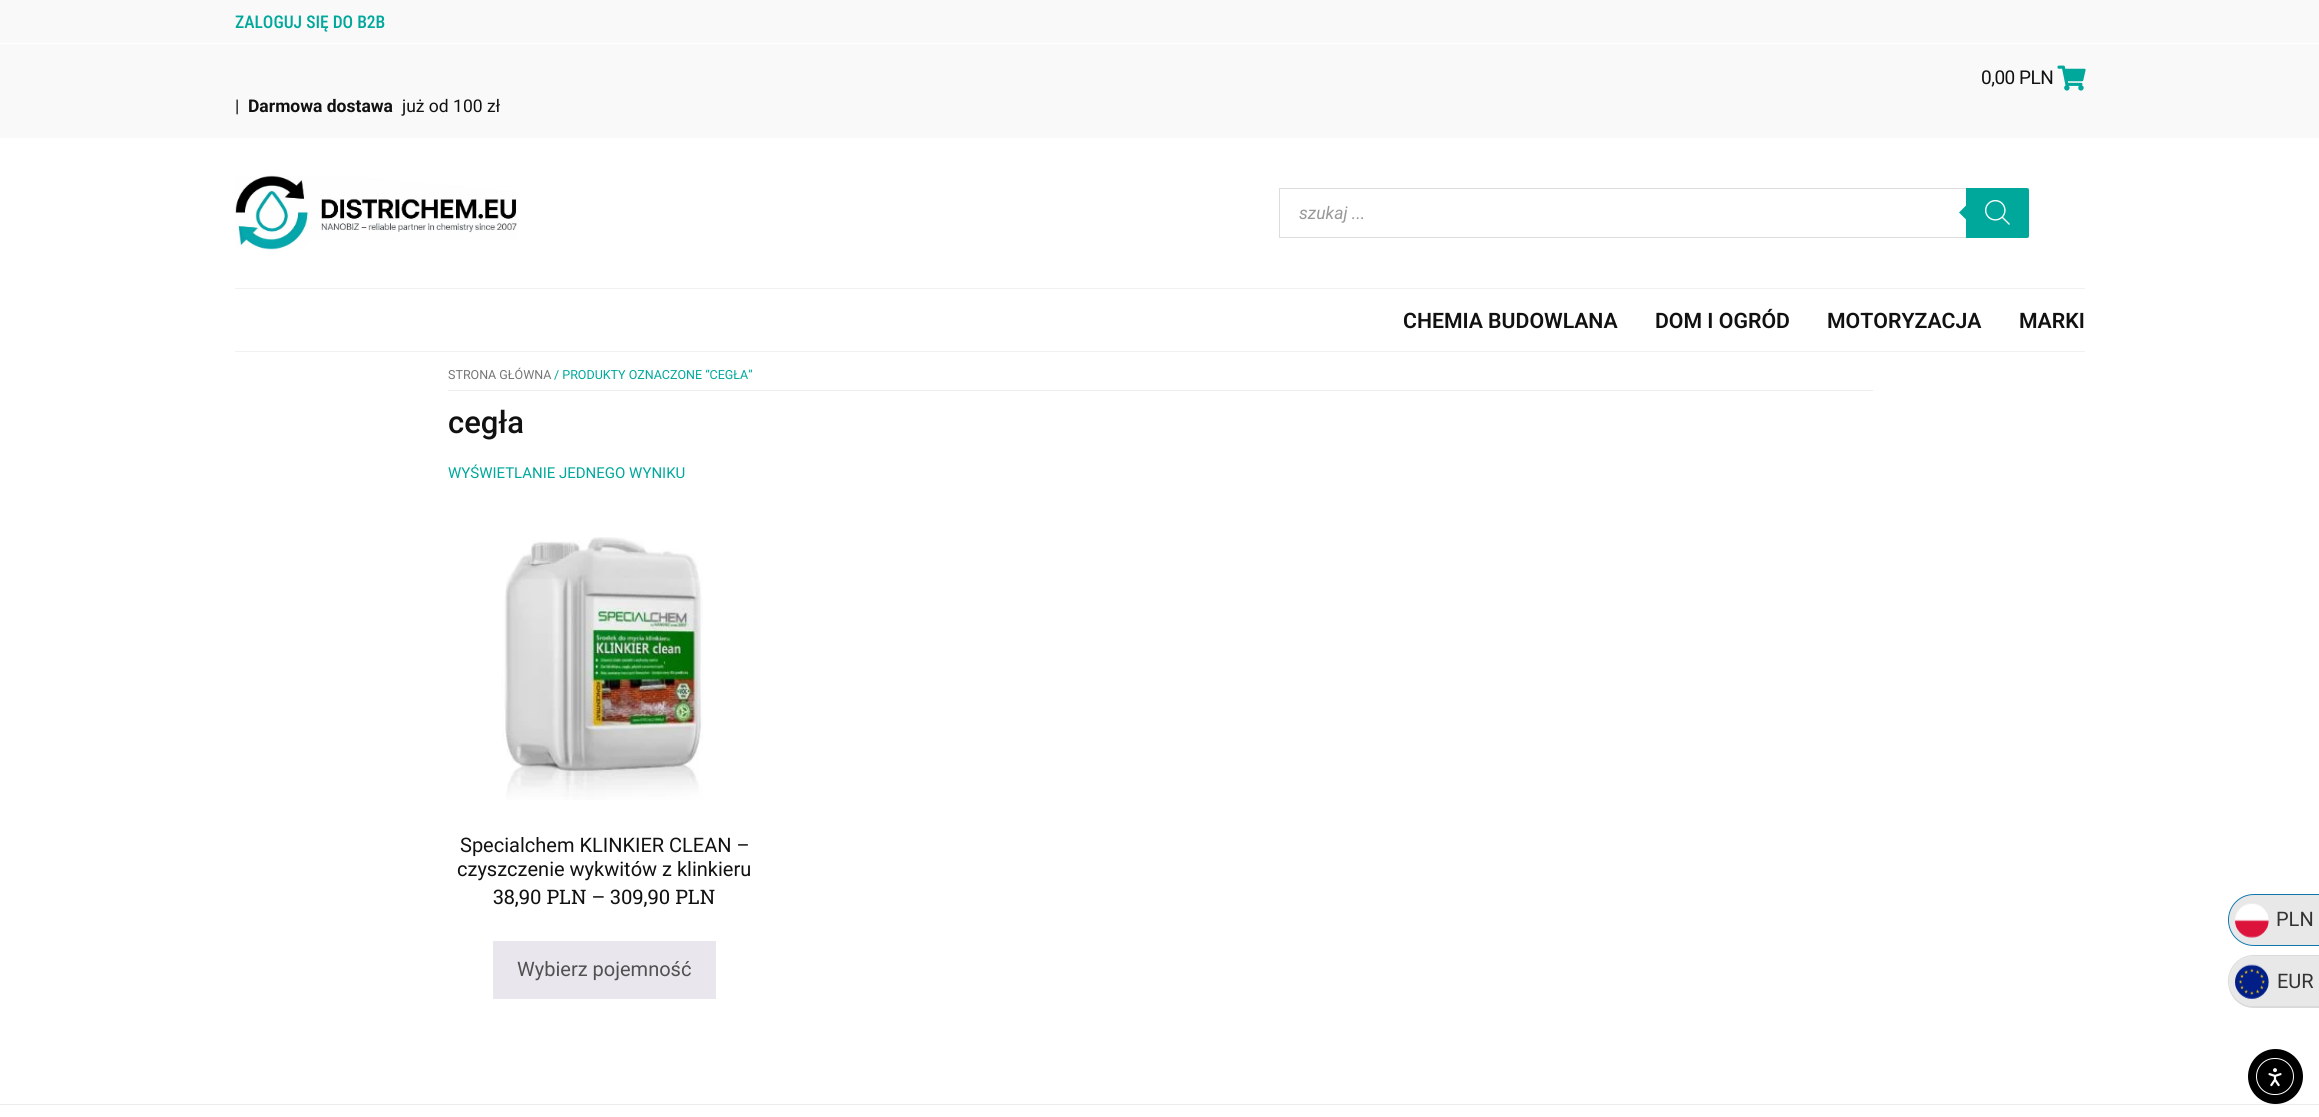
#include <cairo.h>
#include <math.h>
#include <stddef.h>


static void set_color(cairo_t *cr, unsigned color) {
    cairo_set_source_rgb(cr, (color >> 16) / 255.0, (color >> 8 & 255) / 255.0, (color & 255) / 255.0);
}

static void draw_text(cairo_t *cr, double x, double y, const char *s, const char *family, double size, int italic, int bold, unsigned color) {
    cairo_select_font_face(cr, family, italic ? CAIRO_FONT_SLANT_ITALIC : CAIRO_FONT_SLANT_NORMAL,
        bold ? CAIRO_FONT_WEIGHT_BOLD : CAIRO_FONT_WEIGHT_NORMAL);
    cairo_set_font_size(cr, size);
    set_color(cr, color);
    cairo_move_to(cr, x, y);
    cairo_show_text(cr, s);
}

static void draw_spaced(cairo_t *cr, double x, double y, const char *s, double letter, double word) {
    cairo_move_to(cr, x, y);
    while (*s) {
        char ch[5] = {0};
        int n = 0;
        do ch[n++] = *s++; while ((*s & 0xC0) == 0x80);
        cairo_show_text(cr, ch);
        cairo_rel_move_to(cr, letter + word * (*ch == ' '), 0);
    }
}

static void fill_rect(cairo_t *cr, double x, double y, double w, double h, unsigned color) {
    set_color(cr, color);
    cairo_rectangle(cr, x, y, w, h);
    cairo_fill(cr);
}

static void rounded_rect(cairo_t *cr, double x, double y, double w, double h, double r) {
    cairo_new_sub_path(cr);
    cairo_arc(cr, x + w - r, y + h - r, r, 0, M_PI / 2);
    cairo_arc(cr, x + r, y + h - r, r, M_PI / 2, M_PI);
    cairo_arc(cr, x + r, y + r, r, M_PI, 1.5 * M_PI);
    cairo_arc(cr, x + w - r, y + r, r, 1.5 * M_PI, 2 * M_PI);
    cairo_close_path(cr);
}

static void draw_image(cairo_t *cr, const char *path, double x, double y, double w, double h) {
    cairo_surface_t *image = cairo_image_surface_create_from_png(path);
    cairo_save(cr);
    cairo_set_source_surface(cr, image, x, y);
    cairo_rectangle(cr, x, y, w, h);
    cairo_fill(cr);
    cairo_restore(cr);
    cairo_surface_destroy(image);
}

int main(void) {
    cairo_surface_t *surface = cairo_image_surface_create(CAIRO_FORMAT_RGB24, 2319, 1117);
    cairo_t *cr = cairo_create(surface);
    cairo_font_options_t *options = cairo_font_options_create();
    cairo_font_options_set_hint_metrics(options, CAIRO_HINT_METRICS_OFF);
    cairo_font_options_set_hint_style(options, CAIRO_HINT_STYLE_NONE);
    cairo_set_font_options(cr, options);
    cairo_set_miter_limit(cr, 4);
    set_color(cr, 0xFFFFFF);
    cairo_paint(cr);
    fill_rect(cr, 0, 0, 2319, 43, 0xF9F9F9);
    draw_text(cr, 235, 28, "ZALOGUJ SIĘ DO B2B", "Roboto Condensed Medium", 17.5, 0, 0, 0x00A89C);
    fill_rect(cr, 0, 44, 2319, 94, 0xF9F9F9);
    cairo_select_font_face(cr, "Roboto", CAIRO_FONT_SLANT_NORMAL, CAIRO_FONT_WEIGHT_NORMAL);
    cairo_set_font_size(cr, 19);
    set_color(cr, 0x111111);
    draw_spaced(cr, 1981, 84, "0,00 PLN", -0.5, 0);
    draw_image(cr, "assets/img1.png", 2057, 65, 29, 26);
    draw_text(cr, 235, 112, "|", "Roboto", 17.5, 0, 0, 0x111111);
    draw_text(cr, 248, 112, "Darmowa dostawa", "Roboto", 17.5, 0, 1, 0x111111);
    draw_text(cr, 402, 112, "już od 100 zł", "Roboto", 17.5, 0, 0, 0x111111);
    draw_image(cr, "assets/img2.png", 235, 175, 282, 75);
    cairo_rectangle(cr, 1279.5, 188.5, 749, 49);
    set_color(cr, 0xDDDDDD);
    cairo_set_line_width(cr, 1);
    cairo_stroke(cr);
    draw_text(cr, 1299, 219, "szukaj ...", "Roboto", 17.5, 1, 0, 0x999999);
    set_color(cr, 0x00A89C);
    cairo_new_path(cr);
    cairo_move_to(cr, 1966, 188);
    cairo_line_to(cr, 2026.5, 188);
    cairo_curve_to(cr, 2028, 188, 2029, 189, 2029, 190.5);
    cairo_line_to(cr, 2029, 235.5);
    cairo_curve_to(cr, 2029, 237, 2028, 238, 2026.5, 238);
    cairo_line_to(cr, 1966, 238);
    cairo_close_path(cr);
    cairo_fill(cr);
    cairo_new_path(cr);
    cairo_move_to(cr, 1969, 202.5);
    cairo_line_to(cr, 1969, 222.5);
    cairo_line_to(cr, 1959, 212.5);
    cairo_close_path(cr);
    cairo_fill(cr);
    draw_image(cr, "assets/img3.png", 1985, 200, 25, 25);
    fill_rect(cr, 235, 288, 1850, 1, 0xF1F1F1);
    fill_rect(cr, 235, 351, 1850, 1, 0xF1F1F1);
    draw_text(cr, 1403, 328, "CHEMIA BUDOWLANA", "Roboto SemiBold", 21.25, 0, 0, 0x111111);
    draw_text(cr, 1655, 328, "DOM I OGRÓD", "Roboto SemiBold", 21.25, 0, 0, 0x111111);
    draw_text(cr, 1827, 328, "MOTORYZACJA", "Roboto SemiBold", 21.25, 0, 0, 0x111111);
    draw_text(cr, 2019, 328, "MARKI", "Roboto SemiBold", 21.25, 0, 0, 0x111111);
    fill_rect(cr, 448, 390, 1425, 1, 0xEEEEEE);
    draw_text(cr, 448, 379, "STRONA GŁÓWNA", "Roboto", 12.5, 0, 0, 0x767676);
    draw_text(cr, 554, 379, "/ PRODUKTY OZNACZONE “CEGŁA”", "Roboto", 12.5, 0, 0, 0x00A89C);
    draw_text(cr, 448, 433, "cegła", "Roboto Medium", 31, 0, 0, 0x111111);
    draw_text(cr, 448, 478, "WYŚWIETLANIE JEDNEGO WYNIKU", "Roboto", 15, 0, 0, 0x00A89C);
    draw_image(cr, "assets/img4.png", 502, 537, 201, 263);
    draw_text(cr, 460, 852, "Specialchem KLINKIER CLEAN –", "Roboto", 20, 0, 0, 0x111111);
    draw_text(cr, 457, 876, "czyszczenie wykwitów z klinkieru", "Roboto", 20, 0, 0, 0x111111);
    draw_text(cr, 493, 904, "38,90 PLN – 309,90 PLN", "Roboto Slab", 20, 0, 0, 0x111111);
    fill_rect(cr, 493, 941, 223, 58, 0xE9E6ED);
    draw_text(cr, 517, 976, "Wybierz pojemność", "Roboto", 20, 0, 0, 0x515151);
    set_color(cr, 0xE8E8E8);
    cairo_new_path(cr);
    cairo_move_to(cr, 2254, 895);
    cairo_line_to(cr, 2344, 895);
    cairo_line_to(cr, 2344, 945);
    cairo_line_to(cr, 2254, 945);
    cairo_curve_to(cr, 2240, 945, 2229, 934, 2229, 920);
    cairo_curve_to(cr, 2229, 906, 2240, 895, 2254, 895);
    cairo_close_path(cr);
    cairo_fill(cr);
    set_color(cr, 0x0D77AD);
    cairo_set_fill_rule(cr, CAIRO_FILL_RULE_EVEN_ODD);
    cairo_new_path(cr);
    cairo_move_to(cr, 2254, 894);
    cairo_line_to(cr, 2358, 894);
    cairo_line_to(cr, 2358, 946);
    cairo_line_to(cr, 2254, 946);
    cairo_curve_to(cr, 2239, 946, 2228, 934, 2228, 920);
    cairo_curve_to(cr, 2228, 906, 2239, 894, 2254, 894);
    cairo_close_path(cr);
    cairo_move_to(cr, 2254, 895);
    cairo_line_to(cr, 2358, 895);
    cairo_line_to(cr, 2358, 945);
    cairo_line_to(cr, 2254, 945);
    cairo_curve_to(cr, 2240, 945, 2229, 934, 2229, 920);
    cairo_curve_to(cr, 2229, 906, 2240, 895, 2254, 895);
    cairo_close_path(cr);
    cairo_fill(cr);
    draw_image(cr, "assets/img5.png", 2235, 903, 34, 35);
    draw_text(cr, 2276, 926, "PLN", "Roboto", 20, 0, 0, 0x333333);
    set_color(cr, 0xE8E8E8);
    cairo_new_path(cr);
    cairo_move_to(cr, 2254, 956);
    cairo_line_to(cr, 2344, 956);
    cairo_line_to(cr, 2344, 1006);
    cairo_line_to(cr, 2254, 1006);
    cairo_curve_to(cr, 2240, 1006, 2229, 995, 2229, 981);
    cairo_curve_to(cr, 2229, 967, 2240, 956, 2254, 956);
    cairo_close_path(cr);
    cairo_fill(cr);
    set_color(cr, 0xDADADA);
    cairo_new_path(cr);
    cairo_move_to(cr, 2254, 955);
    cairo_line_to(cr, 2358, 955);
    cairo_line_to(cr, 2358, 1008);
    cairo_line_to(cr, 2254, 1008);
    cairo_curve_to(cr, 2239, 1008, 2228, 996, 2228, 981);
    cairo_curve_to(cr, 2228, 967, 2239, 955, 2254, 955);
    cairo_close_path(cr);
    cairo_move_to(cr, 2254, 956);
    cairo_line_to(cr, 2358, 956);
    cairo_line_to(cr, 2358, 1006);
    cairo_line_to(cr, 2254, 1006);
    cairo_curve_to(cr, 2240, 1006, 2229, 995, 2229, 981);
    cairo_curve_to(cr, 2229, 967, 2240, 956, 2254, 956);
    cairo_close_path(cr);
    cairo_fill(cr);
    draw_image(cr, "assets/img6.png", 2235, 964, 34, 35);
    draw_text(cr, 2277, 988, "EUR", "Roboto", 20, 0, 0, 0x333333);
    set_color(cr, 0x000000);
    cairo_new_path(cr);
    cairo_arc(cr, 2275.5, 1076.5, 27.5, 0, 2 * M_PI);
    cairo_fill(cr);
    rounded_rect(cr, 2256.5, 1058.5, 37, 36, 18);
    set_color(cr, 0xFFFFFF);
    cairo_stroke(cr);
    draw_image(cr, "assets/img7.png", 2268, 1068, 14, 19);
    fill_rect(cr, 0, 1104, 2319, 1, 0xECECEC);
    cairo_surface_write_to_png(surface, "output.png");
    cairo_font_options_destroy(options);
    cairo_destroy(cr);
    cairo_surface_destroy(surface);
    return 0;
}
